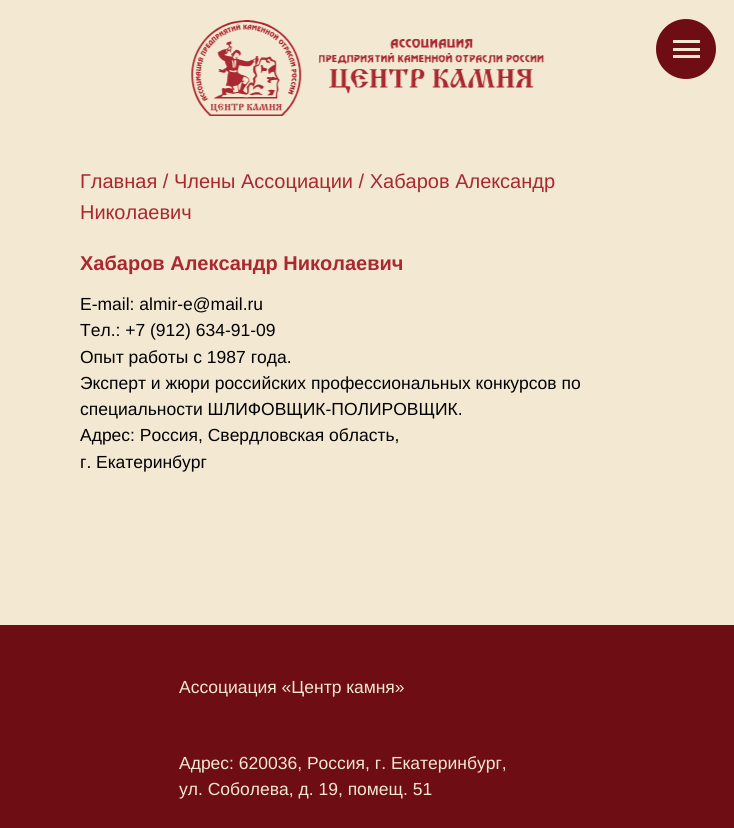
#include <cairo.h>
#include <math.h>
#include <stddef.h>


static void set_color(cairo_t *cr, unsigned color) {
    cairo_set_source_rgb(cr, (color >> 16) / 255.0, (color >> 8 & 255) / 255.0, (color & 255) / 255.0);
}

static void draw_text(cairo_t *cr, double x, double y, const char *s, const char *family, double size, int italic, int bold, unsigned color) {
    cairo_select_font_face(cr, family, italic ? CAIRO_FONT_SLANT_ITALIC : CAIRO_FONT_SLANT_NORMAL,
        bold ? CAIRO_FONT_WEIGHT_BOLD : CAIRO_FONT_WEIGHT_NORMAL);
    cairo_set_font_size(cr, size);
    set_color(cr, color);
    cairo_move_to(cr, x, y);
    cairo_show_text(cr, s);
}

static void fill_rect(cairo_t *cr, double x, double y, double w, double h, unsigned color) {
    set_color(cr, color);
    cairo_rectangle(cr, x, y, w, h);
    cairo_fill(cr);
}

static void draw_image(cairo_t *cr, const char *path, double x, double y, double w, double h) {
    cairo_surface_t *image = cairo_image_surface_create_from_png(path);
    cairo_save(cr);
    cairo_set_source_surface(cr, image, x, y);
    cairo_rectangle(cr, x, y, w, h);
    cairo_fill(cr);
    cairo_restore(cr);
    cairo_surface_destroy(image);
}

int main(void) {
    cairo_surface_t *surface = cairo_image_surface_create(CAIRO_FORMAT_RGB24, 734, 828);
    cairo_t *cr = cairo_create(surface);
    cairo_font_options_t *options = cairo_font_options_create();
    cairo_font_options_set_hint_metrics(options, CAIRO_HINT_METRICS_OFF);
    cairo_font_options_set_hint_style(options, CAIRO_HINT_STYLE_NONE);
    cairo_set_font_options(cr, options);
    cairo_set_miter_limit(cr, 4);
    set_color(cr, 0xF3E8D2);
    cairo_paint(cr);
    draw_image(cr, "assets/img1.png", 191, 20, 111, 96);
    draw_image(cr, "assets/img2.png", 319, 39, 226, 55);
    set_color(cr, 0x6E0D14);
    cairo_arc(cr, 686, 49, 30, 0, 2 * M_PI);
    cairo_fill(cr);
    fill_rect(cr, 673, 40, 27, 3, 0xF3E8D2);
    fill_rect(cr, 673, 48, 27, 3, 0xF3E8D2);
    fill_rect(cr, 673, 55, 27, 3, 0xF3E8D2);
    draw_text(cr, 80, 188, "Главная / Члены Ассоциации / Хабаров Александр", "Liberation Sans", 20, 0, 0, 0xA92831);
    draw_text(cr, 80, 219, "Николаевич", "Liberation Sans", 20, 0, 0, 0xA92831);
    draw_text(cr, 80, 270, "Хабаров Александр Николаевич", "Liberation Sans", 20, 0, 1, 0xA92831);
    draw_text(cr, 80, 310, "E-mail: almir-e@mail.ru", "Liberation Sans", 17.5, 0, 0, 0x000000);
    draw_text(cr, 80, 336, "Тел.: +7 (912) 634-91-09", "Liberation Sans", 17.5, 0, 0, 0x000000);
    draw_text(cr, 80, 363, "Опыт работы с 1987 года.", "Liberation Sans", 17.5, 0, 0, 0x000000);
    draw_text(cr, 80, 389, "Эксперт и жюри российских профессиональных конкурсов по", "Liberation Sans", 17.5, 0, 0, 0x000000);
    draw_text(cr, 80, 415, "специальности ШЛИФОВЩИК-ПОЛИРОВЩИК.", "Liberation Sans", 17.5, 0, 0, 0x000000);
    draw_text(cr, 80, 441, "Адрес: Россия, Свердловская область,", "Liberation Sans", 17.5, 0, 0, 0x000000);
    draw_text(cr, 80, 468, "г. Екатеринбург", "Liberation Sans", 17.5, 0, 0, 0x000000);
    fill_rect(cr, 0, 625, 734, 203, 0x6E0D14);
    draw_text(cr, 179, 693, "Ассоциация «Центр камня»", "Liberation Sans", 17.5, 0, 0, 0xF3E8D2);
    draw_text(cr, 179, 769, "Адрес: 620036, Россия, г. Екатеринбург,", "Liberation Sans", 17.5, 0, 0, 0xF3E8D2);
    draw_text(cr, 179, 795, "ул. Соболева, д. 19, помещ. 51", "Liberation Sans", 17.5, 0, 0, 0xF3E8D2);
    cairo_surface_write_to_png(surface, "output.png");
    cairo_font_options_destroy(options);
    cairo_destroy(cr);
    cairo_surface_destroy(surface);
    return 0;
}
